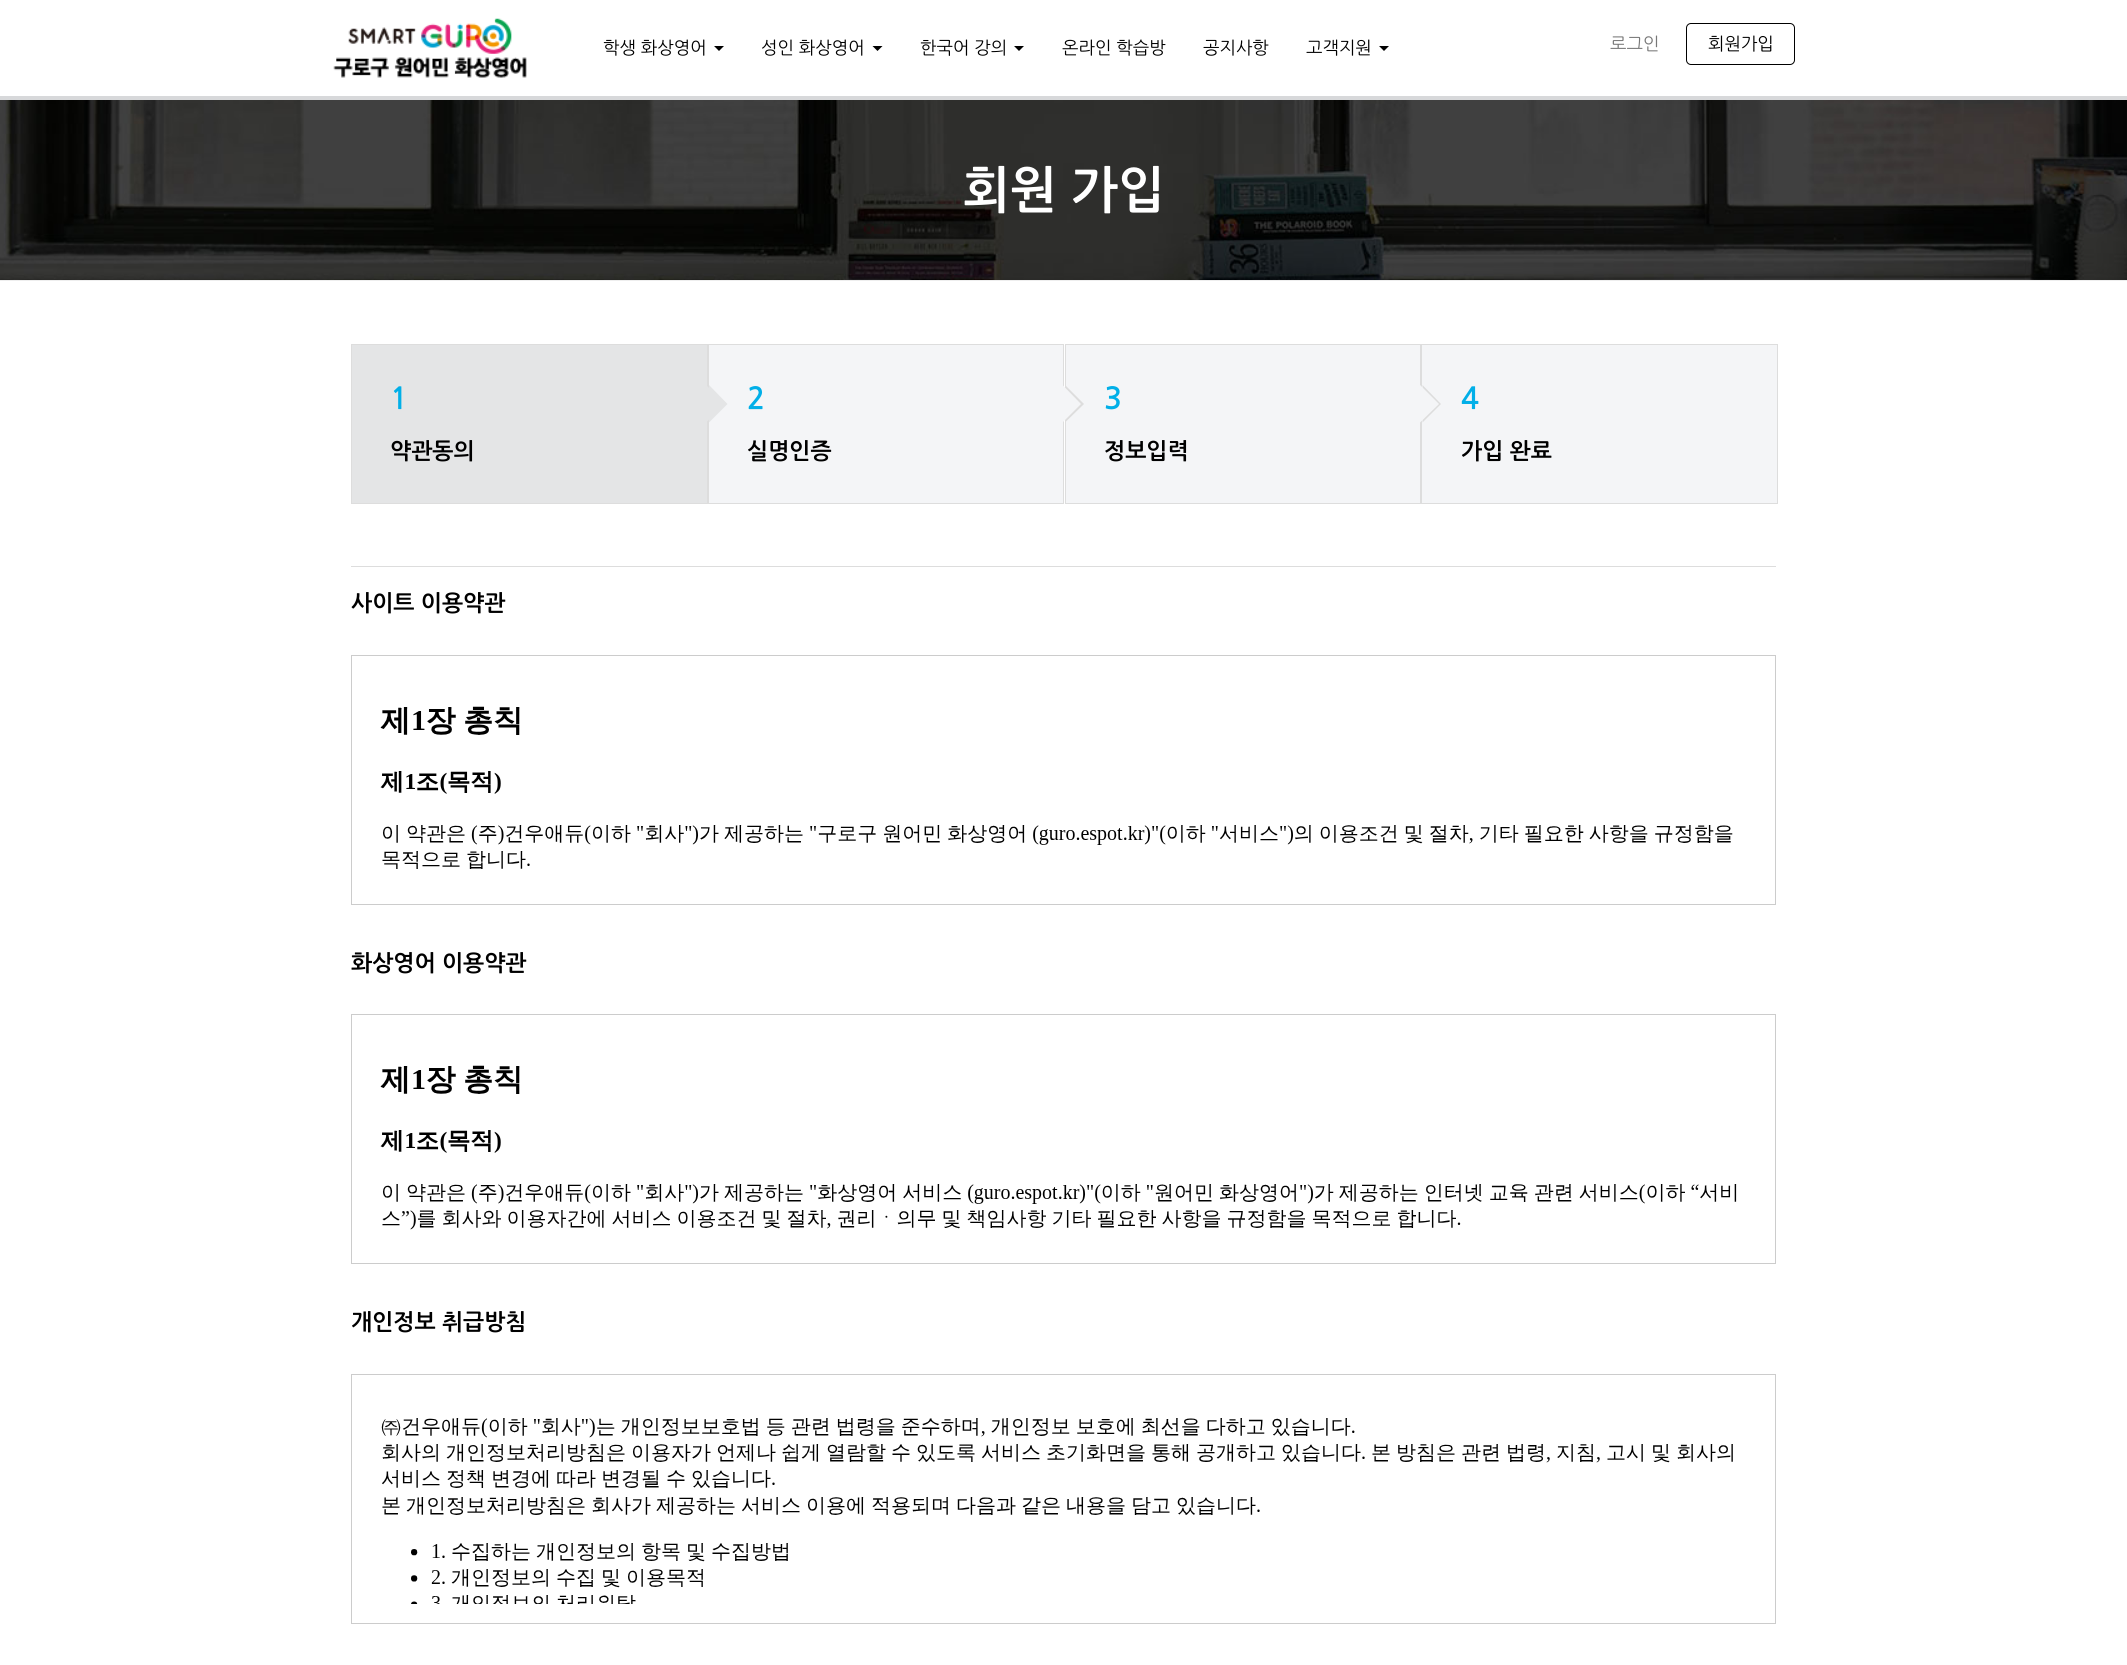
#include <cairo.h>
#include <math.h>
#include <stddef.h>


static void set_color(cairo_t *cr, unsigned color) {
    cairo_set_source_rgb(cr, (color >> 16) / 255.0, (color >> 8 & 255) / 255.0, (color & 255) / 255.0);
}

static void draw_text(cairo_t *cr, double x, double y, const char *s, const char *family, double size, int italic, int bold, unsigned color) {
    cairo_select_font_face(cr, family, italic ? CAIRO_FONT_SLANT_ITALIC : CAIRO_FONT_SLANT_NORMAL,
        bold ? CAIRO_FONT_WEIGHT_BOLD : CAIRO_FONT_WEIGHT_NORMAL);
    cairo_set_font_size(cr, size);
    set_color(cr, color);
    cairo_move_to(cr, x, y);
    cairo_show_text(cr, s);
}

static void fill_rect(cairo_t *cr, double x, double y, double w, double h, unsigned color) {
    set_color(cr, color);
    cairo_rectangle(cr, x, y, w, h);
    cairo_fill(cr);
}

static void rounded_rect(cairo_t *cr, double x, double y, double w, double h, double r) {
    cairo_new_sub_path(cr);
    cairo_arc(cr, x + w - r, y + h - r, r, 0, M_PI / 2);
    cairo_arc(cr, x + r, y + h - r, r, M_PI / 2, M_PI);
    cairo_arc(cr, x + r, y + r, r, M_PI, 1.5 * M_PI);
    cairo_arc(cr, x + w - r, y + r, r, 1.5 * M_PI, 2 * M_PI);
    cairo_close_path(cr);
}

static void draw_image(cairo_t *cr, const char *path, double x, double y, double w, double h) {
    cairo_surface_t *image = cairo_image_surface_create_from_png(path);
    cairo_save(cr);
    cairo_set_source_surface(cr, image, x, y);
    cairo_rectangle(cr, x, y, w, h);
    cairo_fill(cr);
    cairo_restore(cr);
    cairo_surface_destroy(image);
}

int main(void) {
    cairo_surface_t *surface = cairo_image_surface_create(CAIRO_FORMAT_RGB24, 2127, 1665);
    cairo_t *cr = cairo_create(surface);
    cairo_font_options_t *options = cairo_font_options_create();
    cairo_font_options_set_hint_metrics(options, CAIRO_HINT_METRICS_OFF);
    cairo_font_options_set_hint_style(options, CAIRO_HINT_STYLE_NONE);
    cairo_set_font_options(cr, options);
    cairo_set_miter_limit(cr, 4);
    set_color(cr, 0xFFFFFF);
    cairo_paint(cr);
    fill_rect(cr, 0, 96, 2127, 4, 0xD7D8DA);
    draw_image(cr, "assets/img1.png", 333, 18, 194, 60);
    draw_text(cr, 603, 54, "학생 화상영어", "NanumGothic", 17.5, 0, 0, 0x000000);
    cairo_new_path(cr);
    cairo_move_to(cr, 714, 46);
    cairo_line_to(cr, 724, 46);
    cairo_line_to(cr, 719, 51);
    cairo_close_path(cr);
    cairo_fill(cr);
    draw_text(cr, 761, 54, "성인 화상영어", "NanumGothic", 17.5, 0, 0, 0x000000);
    cairo_new_path(cr);
    cairo_move_to(cr, 872.5, 46);
    cairo_line_to(cr, 882.5, 46);
    cairo_line_to(cr, 877.5, 51);
    cairo_close_path(cr);
    cairo_fill(cr);
    draw_text(cr, 920, 54, "한국어 강의", "NanumGothic", 17.5, 0, 0, 0x000000);
    cairo_new_path(cr);
    cairo_move_to(cr, 1014, 46);
    cairo_line_to(cr, 1024, 46);
    cairo_line_to(cr, 1019, 51);
    cairo_close_path(cr);
    cairo_fill(cr);
    draw_text(cr, 1062, 54, "온라인 학습방", "NanumGothic", 17.5, 0, 0, 0x000000);
    draw_text(cr, 1203, 54, "공지사항", "NanumGothic", 17.5, 0, 0, 0x000000);
    draw_text(cr, 1306, 54, "고객지원", "NanumGothic", 17.5, 0, 0, 0x000000);
    cairo_new_path(cr);
    cairo_move_to(cr, 1379, 46);
    cairo_line_to(cr, 1389, 46);
    cairo_line_to(cr, 1384, 51);
    cairo_close_path(cr);
    cairo_fill(cr);
    draw_text(cr, 1610, 50, "로그인", "NanumGothic", 17.5, 0, 0, 0x777777);
    rounded_rect(cr, 1686.5, 23.5, 108, 41, 4.5);
    set_color(cr, 0x000000);
    cairo_set_line_width(cr, 1);
    cairo_stroke(cr);
    draw_text(cr, 1708, 50, "회원가입", "NanumGothic", 17.5, 0, 0, 0x000000);
    draw_image(cr, "assets/img2.png", 0, 100, 2127, 180);
    fill_rect(cr, 0, 280, 2127, 1, 0xEEEEEE);
    draw_text(cr, 963, 208, "회원 가입", "NanumGothic", 50, 0, 1, 0xFFFFFF);
    set_color(cr, 0xE4E5E6);
    cairo_rectangle(cr, 351.5, 344.5, 356, 159);
    cairo_fill_preserve(cr);
    set_color(cr, 0xDDDDDD);
    cairo_stroke(cr);
    set_color(cr, 0xF4F5F7);
    cairo_rectangle(cr, 708.5, 344.5, 355, 159);
    cairo_fill_preserve(cr);
    set_color(cr, 0xDDDDDD);
    cairo_stroke(cr);
    set_color(cr, 0xE4E5E6);
    cairo_new_path(cr);
    cairo_move_to(cr, 709, 422.5);
    cairo_line_to(cr, 709, 385);
    cairo_line_to(cr, 727.5, 404);
    cairo_close_path(cr);
    cairo_fill(cr);
    cairo_new_path(cr);
    cairo_move_to(cr, 706, 422.5);
    cairo_line_to(cr, 706, 385);
    cairo_line_to(cr, 725, 404);
    cairo_close_path(cr);
    cairo_fill(cr);
    draw_text(cr, 390, 409, "1", "NanumGothic", 30, 0, 1, 0x01AFE8);
    draw_text(cr, 390, 459, "약관동의", "NanumGothic", 22.5, 0, 1, 0x000000);
    set_color(cr, 0xF4F5F7);
    cairo_rectangle(cr, 1065.5, 344.5, 355, 159);
    cairo_fill_preserve(cr);
    set_color(cr, 0xDDDDDD);
    cairo_stroke(cr);
    cairo_new_path(cr);
    cairo_move_to(cr, 1065, 422.5);
    cairo_line_to(cr, 1065, 385);
    cairo_line_to(cr, 1084, 404);
    cairo_close_path(cr);
    cairo_fill(cr);
    set_color(cr, 0xF4F5F7);
    cairo_new_path(cr);
    cairo_move_to(cr, 1062.5, 422.5);
    cairo_line_to(cr, 1062.5, 385);
    cairo_line_to(cr, 1081, 404);
    cairo_close_path(cr);
    cairo_fill(cr);
    draw_text(cr, 747, 409, "2", "NanumGothic", 30, 0, 1, 0x01AFE8);
    draw_text(cr, 747, 459, "실명인증", "NanumGothic", 22.5, 0, 1, 0x000000);
    set_color(cr, 0xF4F5F7);
    cairo_rectangle(cr, 1421.5, 344.5, 356, 159);
    cairo_fill_preserve(cr);
    set_color(cr, 0xDDDDDD);
    cairo_stroke(cr);
    cairo_new_path(cr);
    cairo_move_to(cr, 1422.5, 422.5);
    cairo_line_to(cr, 1422.5, 385);
    cairo_line_to(cr, 1441, 404);
    cairo_close_path(cr);
    cairo_fill(cr);
    set_color(cr, 0xF4F5F7);
    cairo_new_path(cr);
    cairo_move_to(cr, 1420, 422.5);
    cairo_line_to(cr, 1420, 385);
    cairo_line_to(cr, 1439, 404);
    cairo_close_path(cr);
    cairo_fill(cr);
    draw_text(cr, 1104, 409, "3", "NanumGothic", 30, 0, 1, 0x01AFE8);
    draw_text(cr, 1104, 459, "정보입력", "NanumGothic", 22.5, 0, 1, 0x000000);
    draw_text(cr, 1461, 409, "4", "NanumGothic", 30, 0, 1, 0x01AFE8);
    draw_text(cr, 1461, 459, "가입 완료", "NanumGothic", 22.5, 0, 1, 0x000000);
    fill_rect(cr, 351, 566, 1425, 1, 0xDDDDDD);
    draw_text(cr, 351, 611, "사이트 이용약관", "NanumGothic", 22.5, 0, 1, 0x000000);
    cairo_rectangle(cr, 351.5, 655.5, 1424, 249);
    set_color(cr, 0xCCCCCC);
    cairo_stroke(cr);
    draw_image(cr, "assets/img3.png", 380, 706, 1353, 163);
    draw_text(cr, 351, 971, "화상영어 이용약관", "NanumGothic", 22.5, 0, 1, 0x000000);
    cairo_rectangle(cr, 351.5, 1014.5, 1424, 249);
    set_color(cr, 0xCCCCCC);
    cairo_stroke(cr);
    draw_image(cr, "assets/img4.png", 380, 1065, 1357, 165);
    draw_text(cr, 351, 1330, "개인정보 취급방침", "NanumGothic", 22.5, 0, 1, 0x000000);
    cairo_rectangle(cr, 351.5, 1374.5, 1424, 249);
    set_color(cr, 0xCCCCCC);
    cairo_stroke(cr);
    draw_image(cr, "assets/img5.png", 381, 1418, 1352, 186);
    cairo_surface_write_to_png(surface, "output.png");
    cairo_font_options_destroy(options);
    cairo_destroy(cr);
    cairo_surface_destroy(surface);
    return 0;
}
